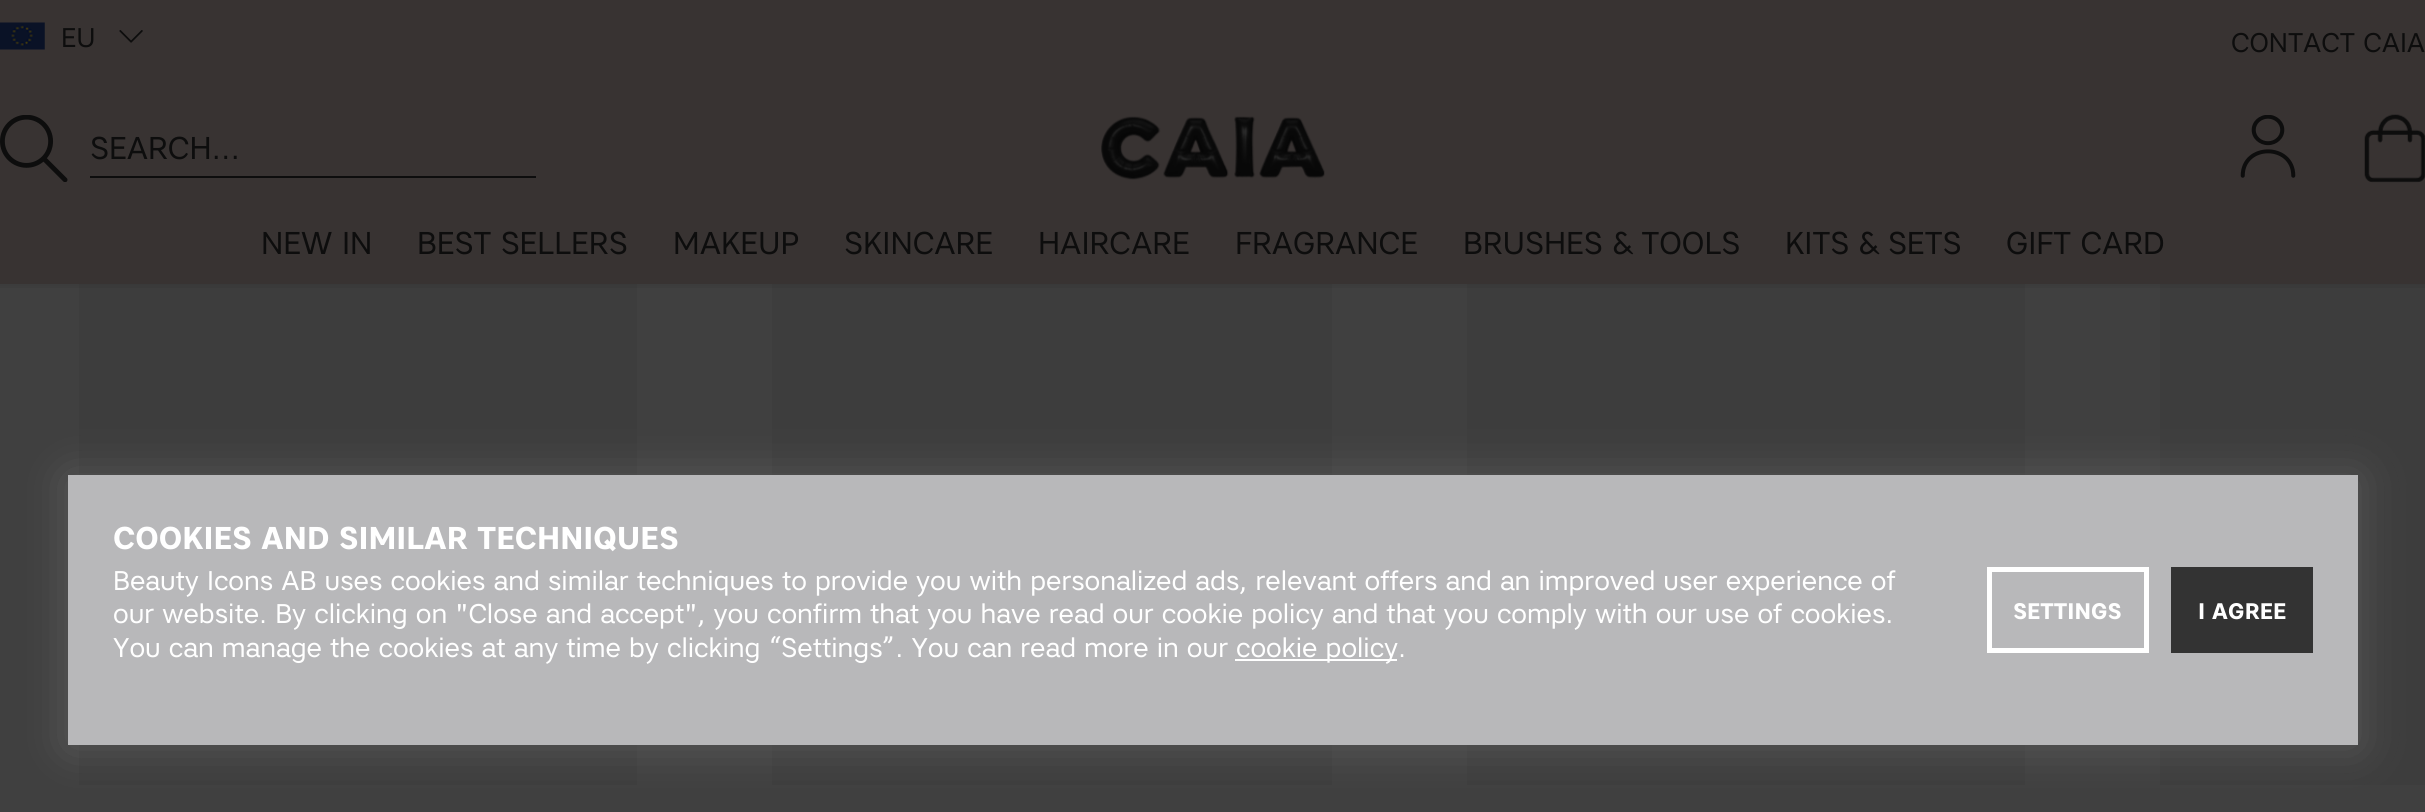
#include <cairo.h>
#include <math.h>
#include <stddef.h>


static void set_color(cairo_t *cr, unsigned color) {
    cairo_set_source_rgb(cr, (color >> 16) / 255.0, (color >> 8 & 255) / 255.0, (color & 255) / 255.0);
}

static void draw_text(cairo_t *cr, double x, double y, const char *s, const char *family, double size, int italic, int bold, unsigned color) {
    cairo_select_font_face(cr, family, italic ? CAIRO_FONT_SLANT_ITALIC : CAIRO_FONT_SLANT_NORMAL,
        bold ? CAIRO_FONT_WEIGHT_BOLD : CAIRO_FONT_WEIGHT_NORMAL);
    cairo_set_font_size(cr, size);
    set_color(cr, color);
    cairo_move_to(cr, x, y);
    cairo_show_text(cr, s);
}

static void fill_rect(cairo_t *cr, double x, double y, double w, double h, unsigned color) {
    set_color(cr, color);
    cairo_rectangle(cr, x, y, w, h);
    cairo_fill(cr);
}

static void rounded_rect(cairo_t *cr, double x, double y, double w, double h, double r) {
    cairo_new_sub_path(cr);
    cairo_arc(cr, x + w - r, y + h - r, r, 0, M_PI / 2);
    cairo_arc(cr, x + r, y + h - r, r, M_PI / 2, M_PI);
    cairo_arc(cr, x + r, y + r, r, M_PI, 1.5 * M_PI);
    cairo_arc(cr, x + w - r, y + r, r, 1.5 * M_PI, 2 * M_PI);
    cairo_close_path(cr);
}

static void draw_shadow(cairo_t *cr, double x, double y, double w, double h, double r, double blur, double alpha) {
    cairo_push_group_with_content(cr, CAIRO_CONTENT_ALPHA);
    cairo_set_operator(cr, CAIRO_OPERATOR_SOURCE);
    for (int i = 15; i >= -15 && fmin(w, h) + blur * i / 3 > 0; i -= 2) {
        double e = blur * i / 6;
        cairo_set_source_rgba(cr, 0, 0, 0, alpha * erfc((i - 1) / 8.5) / 2);
        rounded_rect(cr, x - e, y - e, w + 2 * e, h + 2 * e, fmax(0, fmin(r + e + blur * .6, fmin(w, h) / 2 + e)));
        cairo_fill(cr);
    }
    cairo_pattern_t *soft = cairo_pop_group(cr);
    cairo_mask(cr, soft);
    cairo_pattern_destroy(soft);
}

static void draw_image(cairo_t *cr, const char *path, double x, double y, double w, double h) {
    cairo_surface_t *image = cairo_image_surface_create_from_png(path);
    cairo_save(cr);
    cairo_set_source_surface(cr, image, x, y);
    cairo_rectangle(cr, x, y, w, h);
    cairo_fill(cr);
    cairo_restore(cr);
    cairo_surface_destroy(image);
}

int main(void) {
    cairo_surface_t *surface = cairo_image_surface_create(CAIRO_FORMAT_RGB24, 2425, 812);
    cairo_t *cr = cairo_create(surface);
    cairo_font_options_t *options = cairo_font_options_create();
    cairo_font_options_set_hint_metrics(options, CAIRO_HINT_METRICS_OFF);
    cairo_font_options_set_hint_style(options, CAIRO_HINT_STYLE_NONE);
    cairo_set_font_options(cr, options);
    cairo_set_miter_limit(cr, 4);
    cairo_pattern_t *gradient;
    set_color(cr, 0x404040);
    cairo_paint(cr);
    fill_rect(cr, 0, 0, 2425, 284, 0x383332);
    draw_image(cr, "assets/img1.png", 0, 22, 45, 28);
    draw_text(cr, 61, 47, "EU", "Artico", 27, 0, 0, 0x0D0D0D);
    draw_image(cr, "assets/img2.png", 119, 30, 24, 13);
    draw_text(cr, 2231, 52, "CONTACT CAIA", "Artico", 27, 0, 0, 0x0D0D0D);
    draw_image(cr, "assets/img3.png", 0, 115, 68, 67);
    draw_text(cr, 90, 159, "SEARCH...", "Artico", 31.5, 0, 0, 0x0D0D0D);
    fill_rect(cr, 90, 176, 446, 2, 0x0D0D0D);
    draw_image(cr, "assets/img4.png", 1101, 116, 224, 64);
    draw_image(cr, "assets/img5.png", 2240, 115, 56, 63);
    draw_image(cr, "assets/img6.png", 2364, 114, 61, 69);
    draw_text(cr, 261, 254, "NEW IN", "Artico", 31.5, 0, 0, 0x0D0D0D);
    draw_text(cr, 417, 254, "BEST SELLERS", "Artico", 31.5, 0, 0, 0x0D0D0D);
    draw_text(cr, 673, 254, "MAKEUP", "Artico", 31.5, 0, 0, 0x0D0D0D);
    draw_text(cr, 844, 254, "SKINCARE", "Artico", 31.5, 0, 0, 0x0D0D0D);
    draw_text(cr, 1038, 254, "HAIRCARE", "Artico", 31.5, 0, 0, 0x0D0D0D);
    draw_text(cr, 1235, 254, "FRAGRANCE", "Artico", 31.5, 0, 0, 0x0D0D0D);
    draw_text(cr, 1463, 254, "BRUSHES & TOOLS", "Artico", 31.5, 0, 0, 0x0D0D0D);
    draw_text(cr, 1785, 254, "KITS & SETS", "Artico", 31.5, 0, 0, 0x0D0D0D);
    draw_text(cr, 2006, 254, "GIFT CARD", "Artico", 31.5, 0, 0, 0x0D0D0D);
    fill_rect(cr, 79, 284, 558, 501, 0x3D3D3D);
    fill_rect(cr, 772, 284, 560, 501, 0x3D3D3D);
    fill_rect(cr, 1467, 284, 558, 501, 0x3D3D3D);
    fill_rect(cr, 2160, 284, 265, 501, 0x3D3D3D);
    gradient = cairo_pattern_create_linear(1213, 297, 1213, 284);
    cairo_pattern_add_color_stop_rgba(gradient, 0, 0, 0, 0, 0);
    cairo_pattern_add_color_stop_rgba(gradient, 1, 0, 0, 0, 0.06);
    cairo_set_source(cr, gradient);
    cairo_pattern_destroy(gradient);
    cairo_rectangle(cr, 0, 284, 2425, 4);
    cairo_fill(cr);
    set_color(cr, 0x7B7B7B);
    draw_shadow(cr, 68, 477, 2290, 270, 0, 22.5, 0.44);
    fill_rect(cr, 68, 475, 2290, 270, 0xB8B8BA);
    draw_text(cr, 113, 549, "COOKIES AND SIMILAR TECHNIQUES", "Artico", 31.5, 0, 1, 0xFFFFFF);
    draw_text(cr, 113, 590, "Beauty Icons AB uses cookies and similar techniques to provide you with personalized ads, relevant offers and an improved user experience of", "Artico", 27, 0, 0, 0xFFFFFF);
    draw_text(cr, 113, 623, "our website. By clicking on \"Close and accept\", you confirm that you have read our cookie policy and that you comply with our use of cookies.", "Artico", 27, 0, 0, 0xFFFFFF);
    draw_text(cr, 113, 657, "You can manage the cookies at any time by clicking “Settings”. You can read more in our", "Artico", 27, 0, 0, 0xFFFFFF);
    fill_rect(cr, 1235, 659, 162, 2, 0xFFFFFF);
    draw_text(cr, 1236, 657, "cookie policy.", "Artico", 27, 0, 0, 0xFFFFFF);
    cairo_rectangle(cr, 1989.5, 569.5, 157, 81);
    cairo_set_line_width(cr, 5);
    cairo_stroke(cr);
    draw_text(cr, 2013, 619, "SETTINGS", "Artico", 22.5, 0, 1, 0xFFFFFF);
    fill_rect(cr, 2171, 567, 142, 86, 0x333333);
    draw_text(cr, 2198, 619, "I AGREE", "Artico", 22.5, 0, 1, 0xFFFFFF);
    cairo_surface_write_to_png(surface, "output.png");
    cairo_font_options_destroy(options);
    cairo_destroy(cr);
    cairo_surface_destroy(surface);
    return 0;
}
